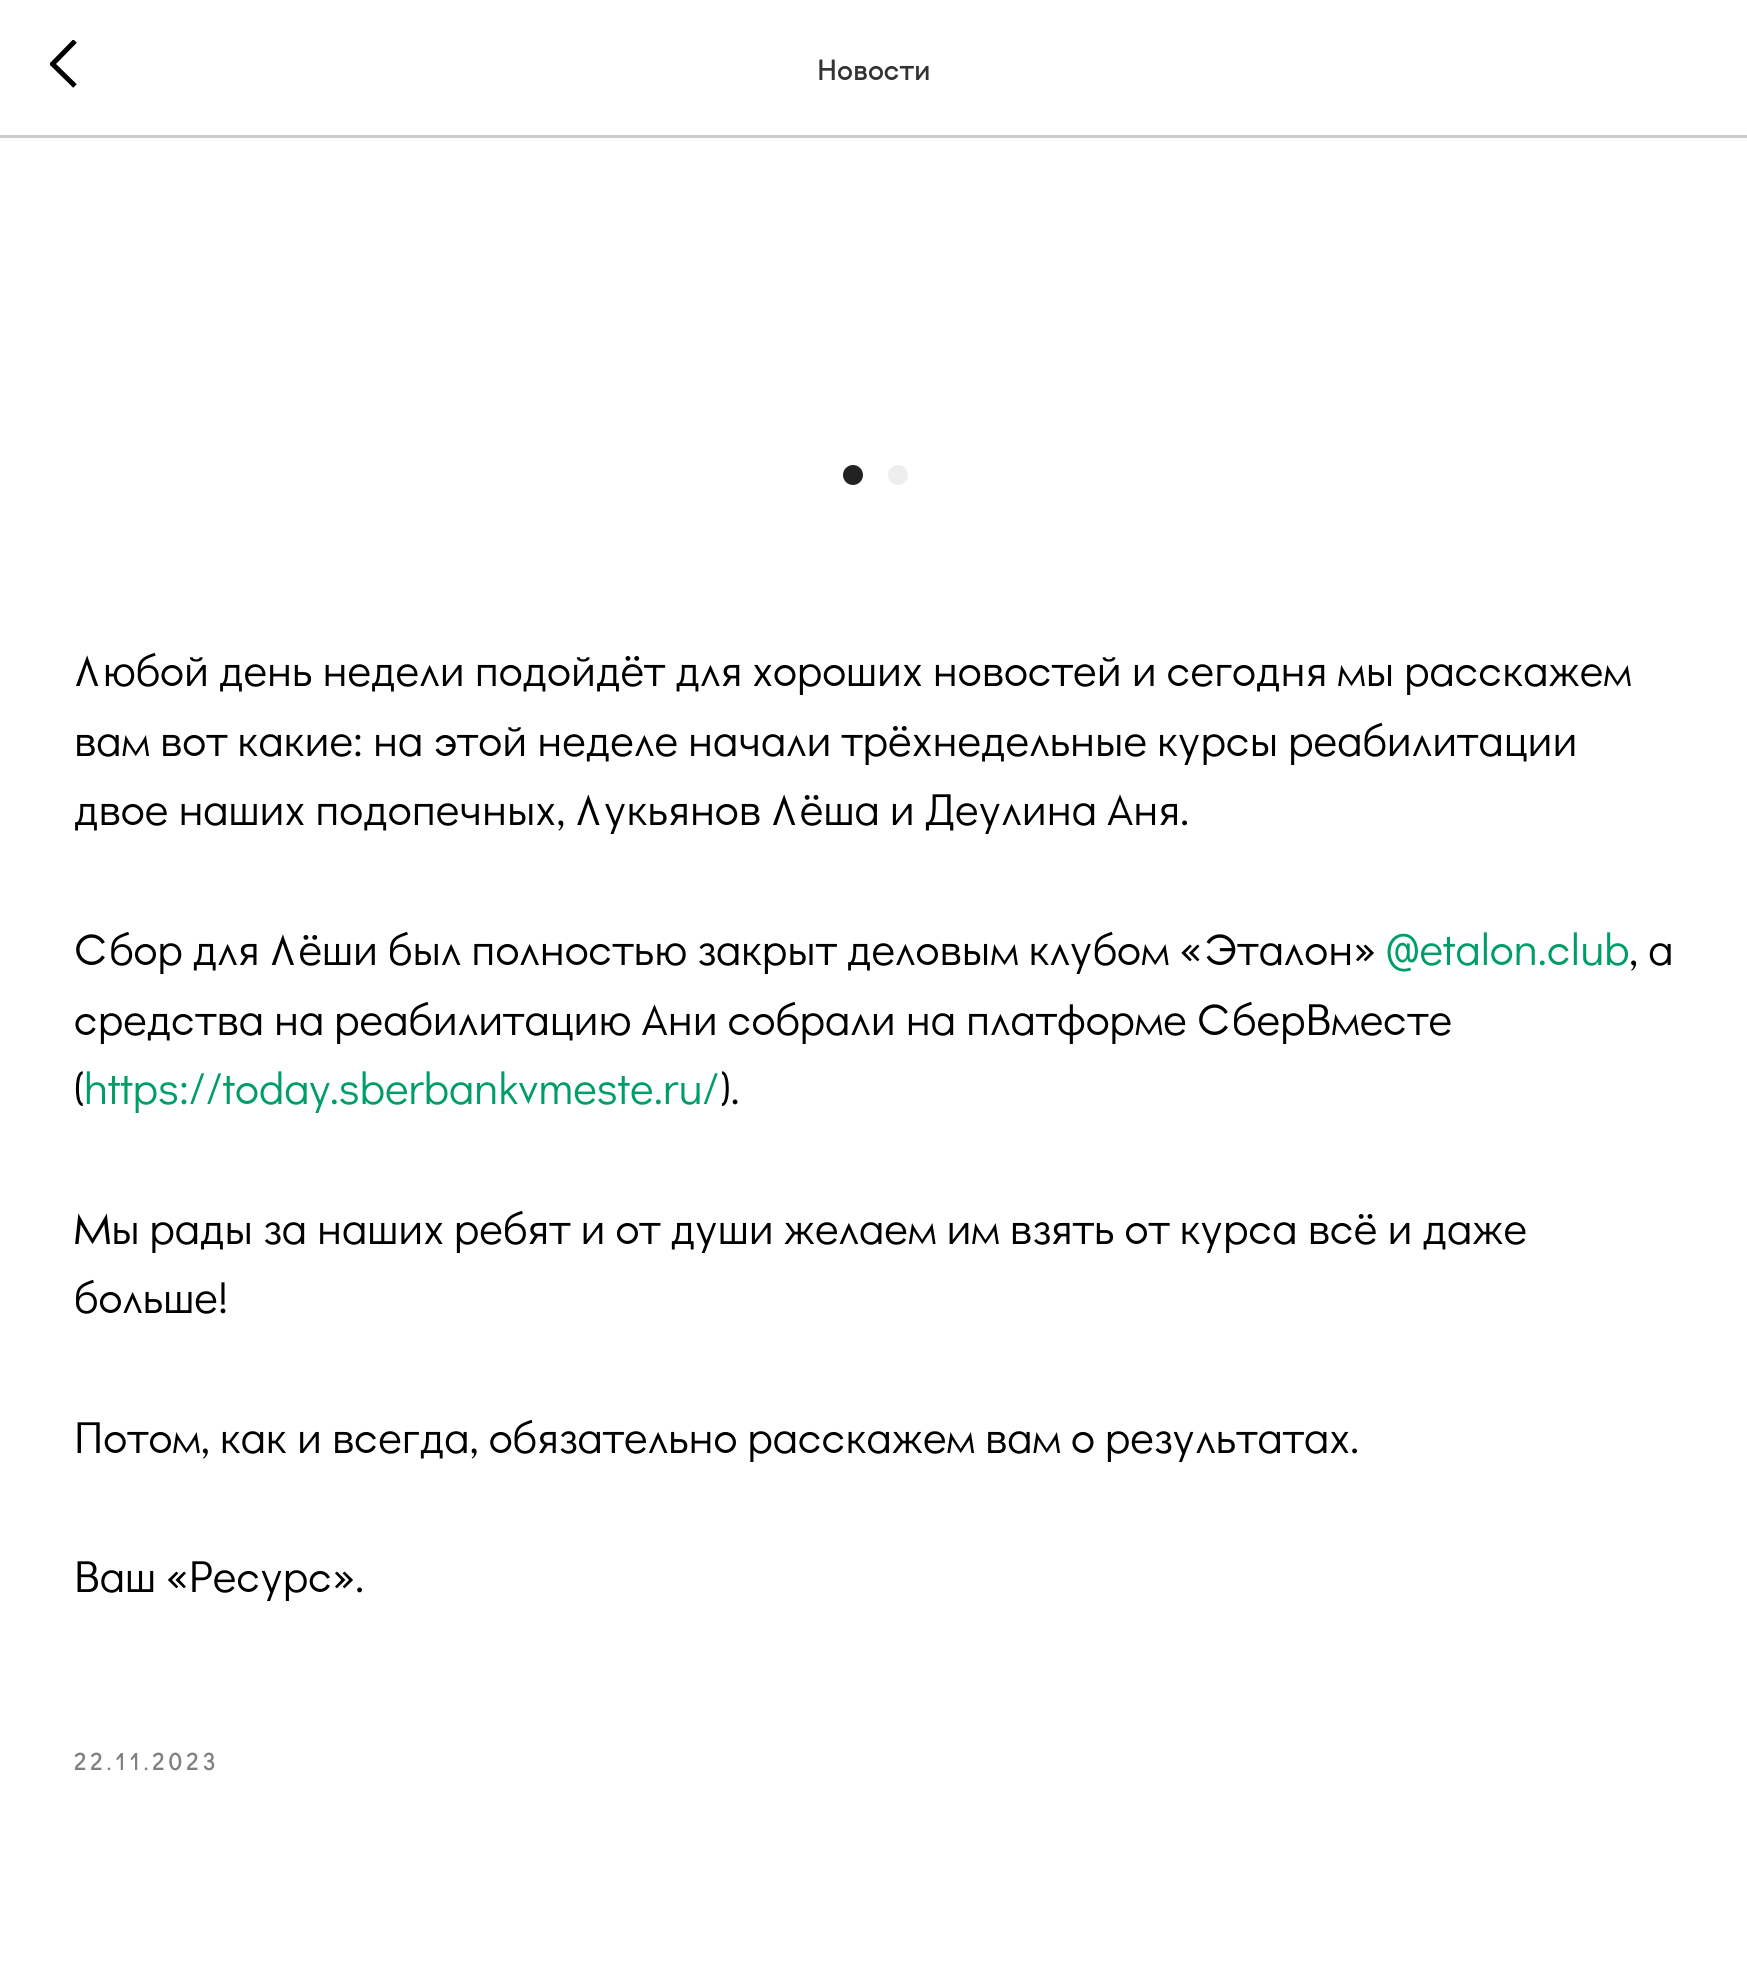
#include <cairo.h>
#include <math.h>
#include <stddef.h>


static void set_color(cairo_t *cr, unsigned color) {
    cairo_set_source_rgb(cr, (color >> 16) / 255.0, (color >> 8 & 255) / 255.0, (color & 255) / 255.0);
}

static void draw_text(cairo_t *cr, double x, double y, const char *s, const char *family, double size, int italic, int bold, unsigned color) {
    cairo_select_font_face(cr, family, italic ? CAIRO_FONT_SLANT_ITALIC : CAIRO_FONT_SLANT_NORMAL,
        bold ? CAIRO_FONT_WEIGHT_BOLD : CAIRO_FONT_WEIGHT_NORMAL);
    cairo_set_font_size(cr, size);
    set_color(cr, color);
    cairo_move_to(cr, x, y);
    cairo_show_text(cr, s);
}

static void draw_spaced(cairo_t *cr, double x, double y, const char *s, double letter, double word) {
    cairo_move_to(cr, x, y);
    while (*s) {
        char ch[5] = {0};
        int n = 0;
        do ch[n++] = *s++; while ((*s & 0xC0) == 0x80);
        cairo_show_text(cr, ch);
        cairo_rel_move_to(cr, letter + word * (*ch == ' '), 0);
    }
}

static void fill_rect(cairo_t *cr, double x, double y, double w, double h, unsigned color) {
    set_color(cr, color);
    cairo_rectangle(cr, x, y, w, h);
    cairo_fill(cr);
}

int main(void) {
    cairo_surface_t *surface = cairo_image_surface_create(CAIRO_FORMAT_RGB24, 1747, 1986);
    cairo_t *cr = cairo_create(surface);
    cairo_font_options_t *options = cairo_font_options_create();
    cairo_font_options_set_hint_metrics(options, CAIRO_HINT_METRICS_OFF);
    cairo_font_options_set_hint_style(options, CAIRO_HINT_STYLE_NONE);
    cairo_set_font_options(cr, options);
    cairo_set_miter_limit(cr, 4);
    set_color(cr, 0xFFFFFF);
    cairo_paint(cr);
    fill_rect(cr, 0, 135, 1747, 3, 0xCCCCCC);
    cairo_save(cr);
    cairo_rectangle(cr, 50, 40, 28, 50);
    cairo_clip(cr);
    cairo_new_path(cr);
    cairo_move_to(cr, 75, 86);
    cairo_line_to(cr, 52.5, 64);
    cairo_line_to(cr, 75, 41);
    set_color(cr, 0x000000);
    cairo_set_line_width(cr, 5);
    cairo_stroke(cr);
    cairo_restore(cr);
    draw_text(cr, 817, 80, "Новости", "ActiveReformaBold", 30, 0, 1, 0x333333);
    set_color(cr, 0x222222);
    cairo_new_path(cr);
    cairo_arc(cr, 853, 475, 10, 0, 2 * M_PI);
    cairo_fill(cr);
    set_color(cr, 0xEEEEEE);
    cairo_arc(cr, 898, 475, 10, 0, 2 * M_PI);
    cairo_fill(cr);
    draw_text(cr, 74, 686, "Любой день недели подойдёт для хороших новостей и сегодня мы расскажем", "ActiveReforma", 45, 0, 0, 0x000000);
    draw_text(cr, 74, 756, "вам вот какие: на этой неделе начали трёхнедельные курсы реабилитации", "ActiveReforma", 45, 0, 0, 0x000000);
    draw_text(cr, 74, 825, "двое наших подопечных, Лукьянов Лёша и Деулина Аня.", "ActiveReforma", 45, 0, 0, 0x000000);
    draw_text(cr, 74, 965, "Сбор для Лёши был полностью закрыт деловым клубом «Эталон»", "ActiveReforma", 45, 0, 0, 0x000000);
    draw_text(cr, 1386, 965, "@etalon.club", "ActiveReforma", 45, 0, 0, 0x009E66);
    draw_text(cr, 1629, 965, ", а", "ActiveReforma", 45, 0, 0, 0x000000);
    draw_text(cr, 74, 1035, "средства на реабилитацию Ани собрали на платформе СберВместе", "ActiveReforma", 45, 0, 0, 0x000000);
    draw_text(cr, 74, 1104, "(", "ActiveReforma", 45, 0, 0, 0x000000);
    draw_text(cr, 84, 1104, "https://today.sberbankvmeste.ru/", "ActiveReforma", 45, 0, 0, 0x009E66);
    draw_text(cr, 720, 1104, ").", "ActiveReforma", 45, 0, 0, 0x000000);
    draw_text(cr, 74, 1244, "Мы рады за наших ребят и от души желаем им взять от курса всё и даже", "ActiveReforma", 45, 0, 0, 0x000000);
    draw_text(cr, 74, 1313, "больше!", "ActiveReforma", 45, 0, 0, 0x000000);
    draw_text(cr, 74, 1453, "Потом, как и всегда, обязательно расскажем вам о результатах.", "ActiveReforma", 45, 0, 0, 0x000000);
    draw_text(cr, 74, 1592, "Ваш «Ресурс».", "ActiveReforma", 45, 0, 0, 0x000000);
    cairo_select_font_face(cr, "ActiveReformaBold", CAIRO_FONT_SLANT_NORMAL, CAIRO_FONT_WEIGHT_BOLD);
    cairo_set_font_size(cr, 25);
    set_color(cr, 0x808080);
    draw_spaced(cr, 74, 1770, "22.11.2023", 3.75, 0);
    cairo_surface_write_to_png(surface, "output.png");
    cairo_font_options_destroy(options);
    cairo_destroy(cr);
    cairo_surface_destroy(surface);
    return 0;
}
